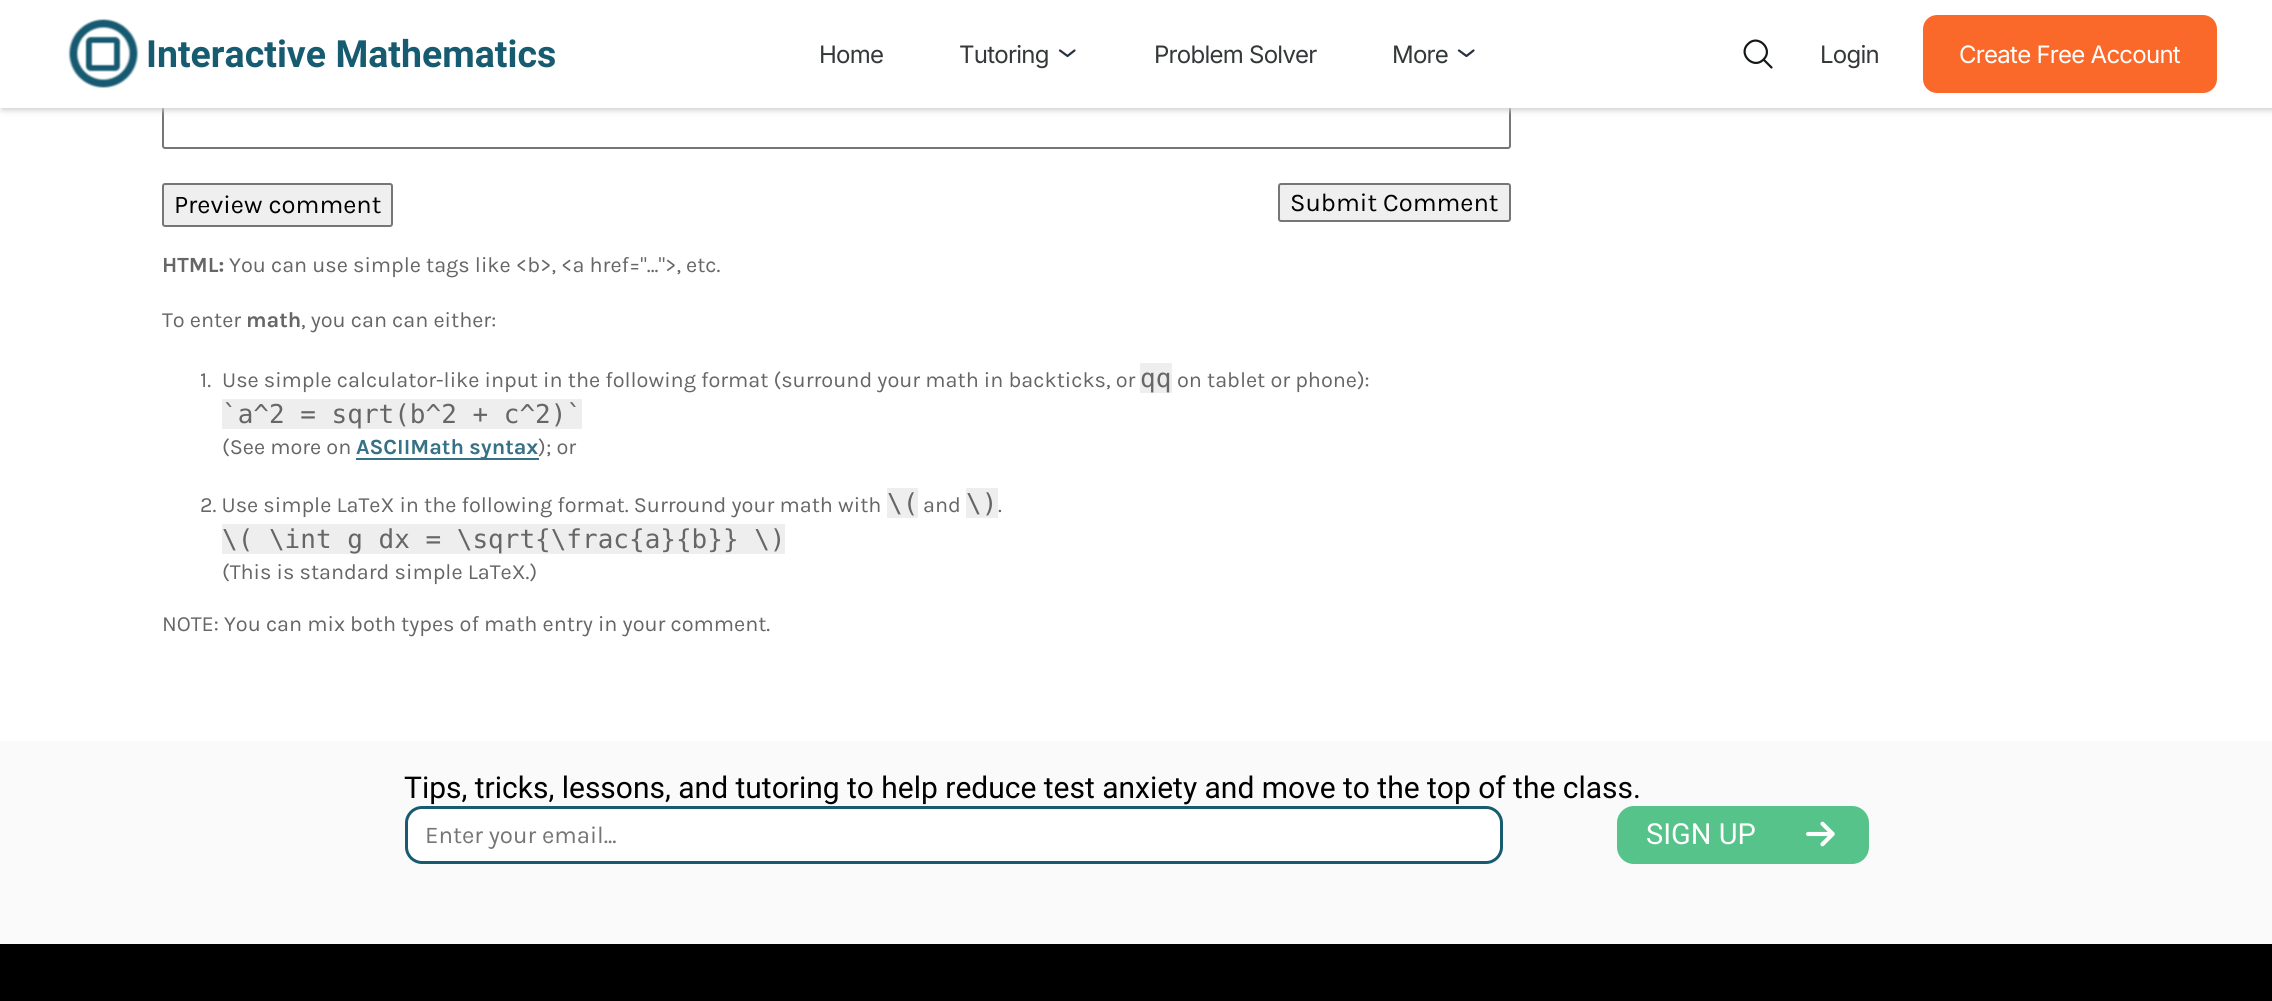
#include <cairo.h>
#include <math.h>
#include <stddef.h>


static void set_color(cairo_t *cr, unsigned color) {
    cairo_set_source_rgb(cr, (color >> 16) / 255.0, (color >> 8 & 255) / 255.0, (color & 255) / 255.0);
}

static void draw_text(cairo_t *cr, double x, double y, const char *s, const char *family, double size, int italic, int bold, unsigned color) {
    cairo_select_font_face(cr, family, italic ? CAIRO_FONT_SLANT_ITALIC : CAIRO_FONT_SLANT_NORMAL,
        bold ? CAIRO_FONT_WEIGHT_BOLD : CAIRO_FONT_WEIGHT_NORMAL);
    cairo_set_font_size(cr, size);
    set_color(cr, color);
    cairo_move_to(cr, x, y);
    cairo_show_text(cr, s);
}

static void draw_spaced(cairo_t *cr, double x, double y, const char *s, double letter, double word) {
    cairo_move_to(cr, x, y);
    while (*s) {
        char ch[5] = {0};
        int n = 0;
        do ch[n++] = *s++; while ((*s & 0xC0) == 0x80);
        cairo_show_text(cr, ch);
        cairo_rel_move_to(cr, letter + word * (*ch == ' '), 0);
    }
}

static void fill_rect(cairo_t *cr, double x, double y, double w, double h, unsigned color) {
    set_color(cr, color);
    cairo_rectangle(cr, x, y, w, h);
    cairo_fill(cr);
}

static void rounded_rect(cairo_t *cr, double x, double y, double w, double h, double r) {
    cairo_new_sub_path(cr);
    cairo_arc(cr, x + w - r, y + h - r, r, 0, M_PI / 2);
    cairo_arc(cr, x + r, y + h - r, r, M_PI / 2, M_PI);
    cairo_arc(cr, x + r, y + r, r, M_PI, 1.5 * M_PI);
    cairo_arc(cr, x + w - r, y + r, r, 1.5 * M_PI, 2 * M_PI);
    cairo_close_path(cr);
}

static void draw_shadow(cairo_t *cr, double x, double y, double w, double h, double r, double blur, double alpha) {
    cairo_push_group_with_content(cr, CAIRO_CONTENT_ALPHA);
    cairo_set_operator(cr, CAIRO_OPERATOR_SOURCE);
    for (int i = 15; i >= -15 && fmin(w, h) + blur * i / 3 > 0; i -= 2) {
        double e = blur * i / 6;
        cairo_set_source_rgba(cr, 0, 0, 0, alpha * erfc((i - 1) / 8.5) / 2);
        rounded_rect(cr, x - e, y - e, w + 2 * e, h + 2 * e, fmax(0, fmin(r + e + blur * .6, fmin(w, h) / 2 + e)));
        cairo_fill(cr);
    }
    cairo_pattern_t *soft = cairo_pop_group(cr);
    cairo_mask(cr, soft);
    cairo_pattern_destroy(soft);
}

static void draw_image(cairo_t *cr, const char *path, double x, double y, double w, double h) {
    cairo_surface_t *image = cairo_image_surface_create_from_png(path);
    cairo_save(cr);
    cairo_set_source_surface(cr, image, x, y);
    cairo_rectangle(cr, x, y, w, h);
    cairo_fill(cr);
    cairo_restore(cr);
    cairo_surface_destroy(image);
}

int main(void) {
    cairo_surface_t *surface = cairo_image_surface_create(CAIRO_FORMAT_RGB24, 2272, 1001);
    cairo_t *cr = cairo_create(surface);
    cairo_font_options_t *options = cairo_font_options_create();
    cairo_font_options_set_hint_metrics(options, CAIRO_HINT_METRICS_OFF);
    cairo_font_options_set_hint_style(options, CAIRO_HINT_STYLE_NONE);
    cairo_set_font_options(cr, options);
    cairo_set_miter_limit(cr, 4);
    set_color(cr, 0xFFFFFF);
    cairo_paint(cr);
    rounded_rect(cr, 163, -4, 1347, 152, 2);
    set_color(cr, 0x767676);
    cairo_stroke(cr);
    set_color(cr, 0xCCCCCC);
    draw_shadow(cr, 2, 2, 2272, 108, 0, 3, 1);
    fill_rect(cr, 0, 0, 2272, 108, 0xFFFFFF);
    draw_image(cr, "assets/img1.png", 68, 18, 71, 71);
    draw_text(cr, 146, 67, "Interactive Mathematics", "Roboto", 37.5, 0, 1, 0x165B70);
    cairo_select_font_face(cr, "Inter", CAIRO_FONT_SLANT_NORMAL, CAIRO_FONT_WEIGHT_NORMAL);
    cairo_set_font_size(cr, 24);
    set_color(cr, 0x343839);
    draw_spaced(cr, 819, 63, "Home", -0.75, 0);
    draw_spaced(cr, 959, 63, "Tutoring", -0.75, 0);
    cairo_new_path(cr);
    cairo_move_to(cr, 1060, 50.5);
    cairo_line_to(cr, 1067.5, 56);
    cairo_line_to(cr, 1074.5, 50.5);
    set_color(cr, 0x28303F);
    cairo_set_line_width(cr, 2.2);
    cairo_set_line_cap(cr, CAIRO_LINE_CAP_ROUND);
    cairo_set_line_join(cr, CAIRO_LINE_JOIN_ROUND);
    cairo_stroke(cr);
    set_color(cr, 0x343839);
    draw_spaced(cr, 1154, 63, "Problem Solver", -0.75, 0);
    draw_spaced(cr, 1392, 63, "More", -0.75, 0);
    cairo_new_path(cr);
    cairo_move_to(cr, 1459, 50.5);
    cairo_line_to(cr, 1466.5, 56);
    cairo_line_to(cr, 1473.5, 50.5);
    set_color(cr, 0x28303F);
    cairo_stroke(cr);
    cairo_new_path(cr);
    cairo_move_to(cr, 1771.5, 67.5);
    cairo_line_to(cr, 1763.5, 59.5);
    cairo_move_to(cr, 1763.5, 59.5);
    cairo_curve_to(cr, 1774, 49.5, 1758, 33.5, 1748, 44);
    cairo_curve_to(cr, 1737.5, 54, 1753.5, 70, 1763.5, 59.5);
    cairo_close_path(cr);
    set_color(cr, 0x141718);
    cairo_stroke(cr);
    set_color(cr, 0x343839);
    draw_spaced(cr, 1820, 63, "Login", -0.75, 0);
    set_color(cr, 0xFB692A);
    rounded_rect(cr, 1923, 15, 294, 78, 14);
    cairo_fill(cr);
    set_color(cr, 0xFFFFFF);
    draw_spaced(cr, 1959, 63, "Create Free Account", -0.75, 0);
    set_color(cr, 0xEFEFEF);
    rounded_rect(cr, 163, 184, 229, 42, 2);
    cairo_fill_preserve(cr);
    set_color(cr, 0x767676);
    cairo_set_line_width(cr, 2);
    cairo_set_line_cap(cr, CAIRO_LINE_CAP_BUTT);
    cairo_set_line_join(cr, CAIRO_LINE_JOIN_MITER);
    cairo_stroke(cr);
    draw_text(cr, 174, 213, "Preview comment", "Karla", 25.5, 0, 0, 0x000000);
    set_color(cr, 0xEFEFEF);
    rounded_rect(cr, 1279, 184, 231, 37, 2);
    cairo_fill_preserve(cr);
    set_color(cr, 0x767676);
    cairo_stroke(cr);
    draw_text(cr, 1290, 211, "Submit Comment", "Karla", 25.5, 0, 0, 0x000000);
    draw_text(cr, 162, 272, "HTML:", "Karla", 21.65, 0, 1, 0x666666);
    draw_text(cr, 229, 272, "You can use simple tags like <b>, <a href=\"...\">, etc.", "Karla", 21.65, 0, 0, 0x666666);
    draw_text(cr, 162, 327, "To enter", "Karla", 21.65, 0, 0, 0x666666);
    draw_text(cr, 246, 327, "math", "Karla", 21.65, 0, 1, 0x666666);
    draw_text(cr, 301, 327, ", you can can either:", "Karla", 21.65, 0, 0, 0x666666);
    draw_text(cr, 200, 387, "1.", "Karla", 21.65, 0, 0, 0x666666);
    draw_text(cr, 222, 387, "Use simple calculator-like input in the following format (surround your math in backticks, or", "Karla", 21.65, 0, 0, 0x666666);
    fill_rect(cr, 1140, 363, 32, 30, 0xEEEEEE);
    draw_text(cr, 1140, 387, "qq", "DejaVu Sans Mono", 26, 0, 0, 0x666666);
    draw_text(cr, 1177, 387, "on tablet or phone):", "Karla", 21.65, 0, 0, 0x666666);
    fill_rect(cr, 222, 399, 360, 30, 0xEEEEEE);
    draw_text(cr, 222, 423, "`a^2 = sqrt(b^2 + c^2)`", "DejaVu Sans Mono", 26, 0, 0, 0x666666);
    draw_text(cr, 222, 454, "(See more on", "Karla", 21.65, 0, 0, 0x666666);
    fill_rect(cr, 356, 458, 183, 2, 0x377185);
    draw_text(cr, 356, 454, "ASCIIMath syntax", "Karla", 21.65, 0, 1, 0x377185);
    draw_text(cr, 538, 454, "); or", "Karla", 21.65, 0, 0, 0x666666);
    draw_text(cr, 200, 512, "2. Use simple LaTeX in the following format. Surround your math with", "Karla", 21.65, 0, 0, 0x666666);
    fill_rect(cr, 887, 488, 31, 30, 0xEEEEEE);
    draw_text(cr, 887, 512, "\\(", "DejaVu Sans Mono", 26, 0, 0, 0x666666);
    draw_text(cr, 923, 512, "and", "Karla", 21.65, 0, 0, 0x666666);
    fill_rect(cr, 966, 488, 32, 30, 0xEEEEEE);
    draw_text(cr, 966, 512, "\\)", "DejaVu Sans Mono", 26, 0, 0, 0x666666);
    draw_text(cr, 998, 512, ".", "Karla", 21.65, 0, 0, 0x666666);
    fill_rect(cr, 222, 524, 563, 30, 0xEEEEEE);
    draw_text(cr, 222, 548, "\\( \\int g dx = \\sqrt{\\frac{a}{b}} \\)", "DejaVu Sans Mono", 26, 0, 0, 0x666666);
    draw_text(cr, 222, 579, "(This is standard simple LaTeX.)", "Karla", 21.65, 0, 0, 0x666666);
    draw_text(cr, 162, 631, "NOTE: You can mix both types of math entry in your comment.", "Karla", 21.65, 0, 0, 0x666666);
    fill_rect(cr, 0, 741, 2272, 203, 0xFAFAFA);
    draw_text(cr, 404, 798, "Tips, tricks, lessons, and tutoring to help reduce test anxiety and move to the top of the class.", "Roboto", 30, 0, 0, 0x000000);
    set_color(cr, 0xFFFFFF);
    rounded_rect(cr, 406.5, 807.5, 1095, 55, 15.5);
    cairo_fill_preserve(cr);
    set_color(cr, 0x165B70);
    cairo_set_line_width(cr, 3);
    cairo_stroke(cr);
    draw_text(cr, 425, 843, "Enter your email...", "Karla", 24, 0, 0, 0x757575);
    set_color(cr, 0x56C38A);
    rounded_rect(cr, 1617, 806, 252, 58, 17);
    cairo_fill(cr);
    draw_text(cr, 1646, 844, "SIGN UP", "Roboto", 29, 0, 0, 0xFFFFFF);
    draw_image(cr, "assets/img2.png", 1806, 821, 29, 26);
    fill_rect(cr, 0, 944, 2272, 57, 0x000000);
    cairo_surface_write_to_png(surface, "output.png");
    cairo_font_options_destroy(options);
    cairo_destroy(cr);
    cairo_surface_destroy(surface);
    return 0;
}
